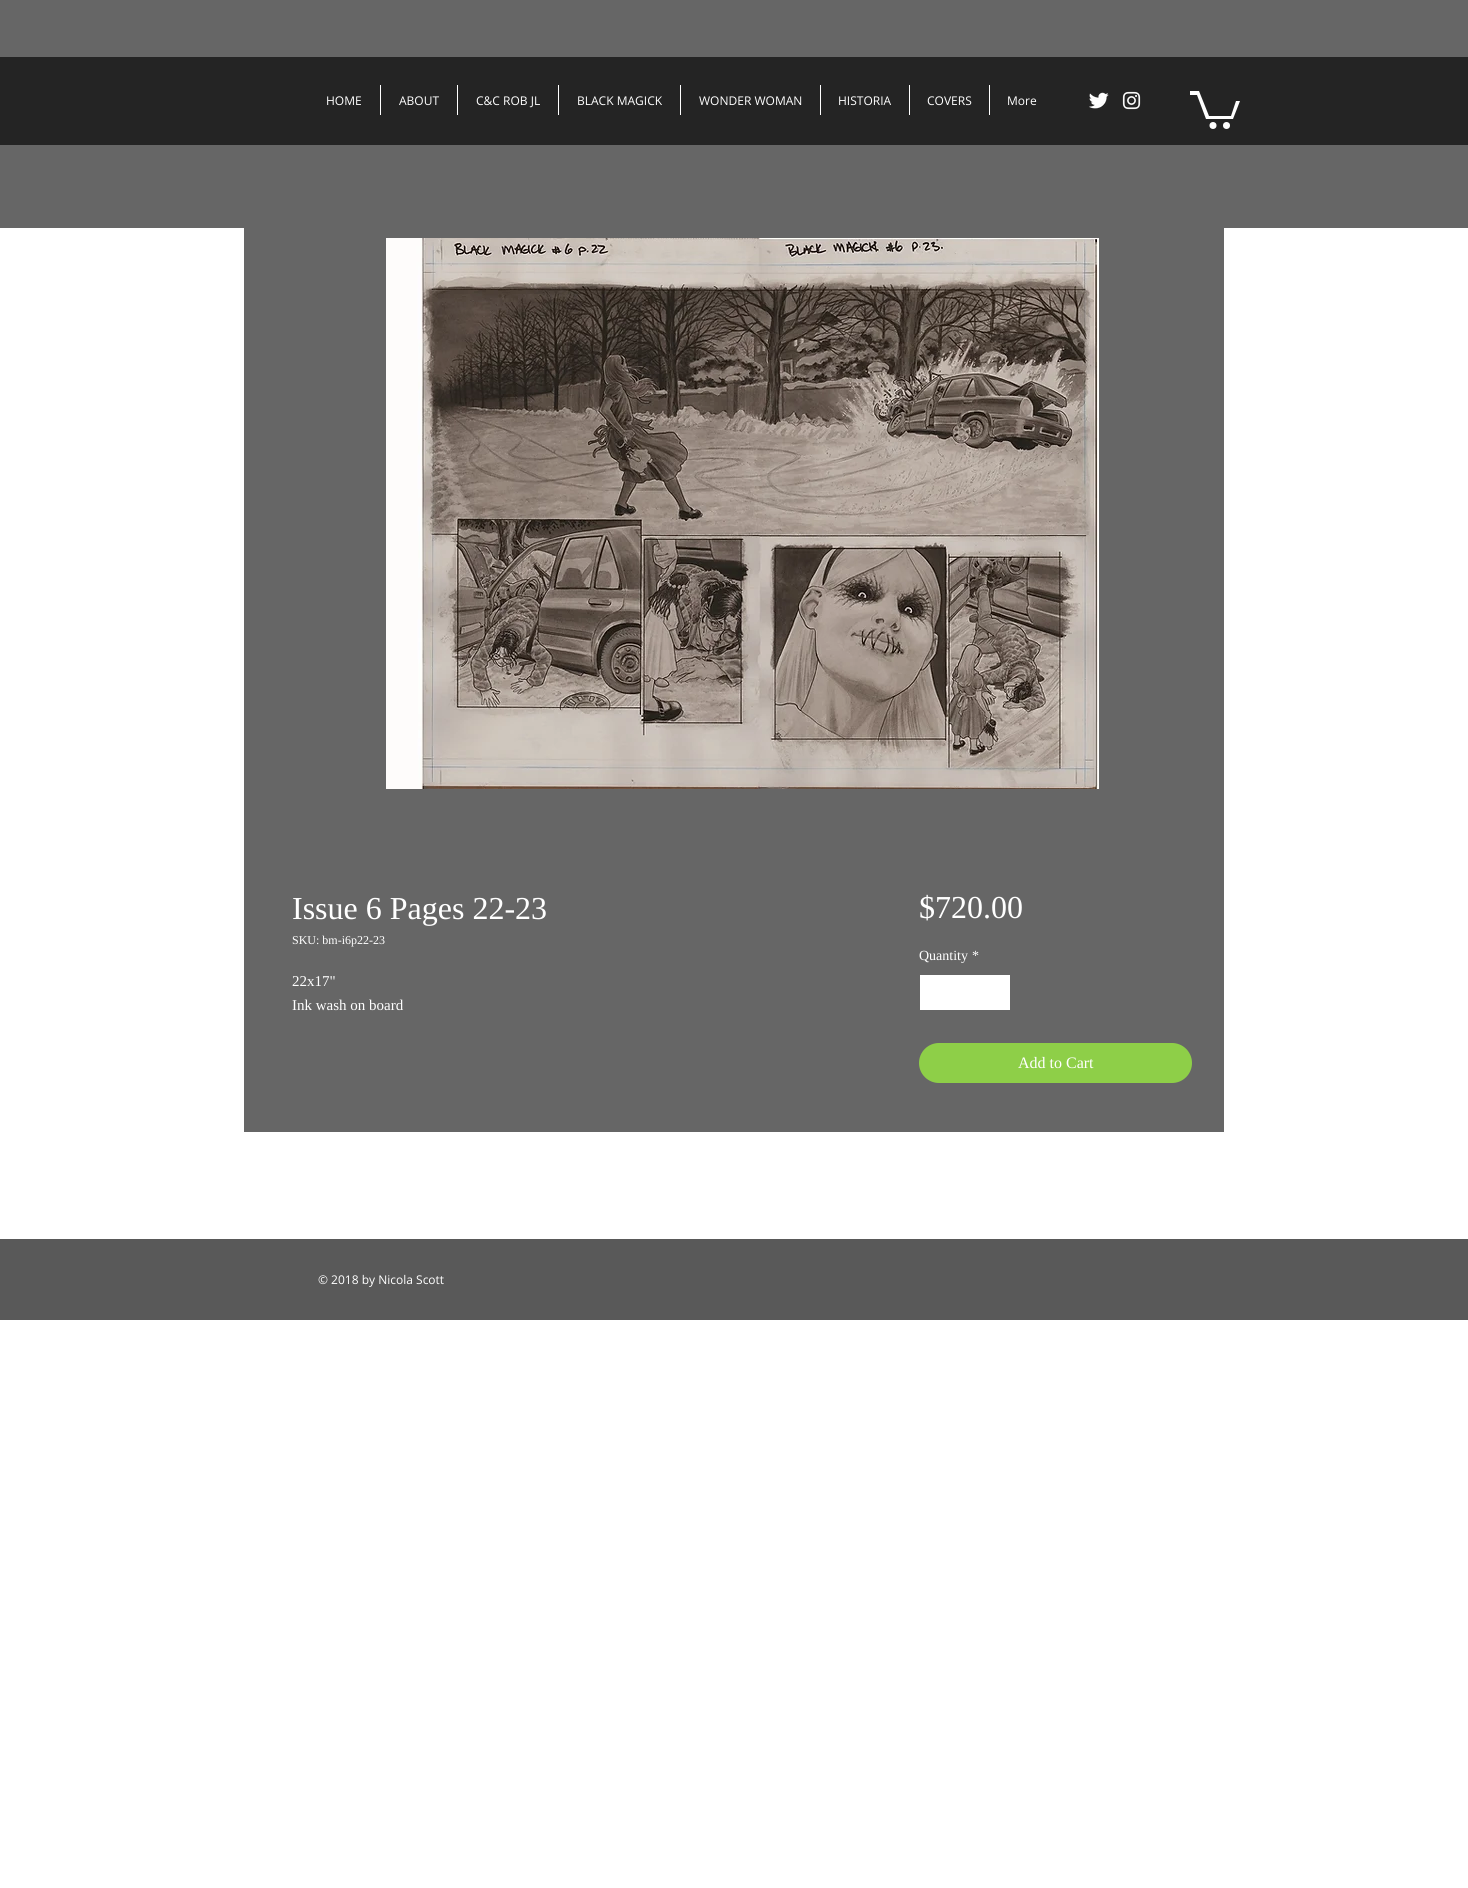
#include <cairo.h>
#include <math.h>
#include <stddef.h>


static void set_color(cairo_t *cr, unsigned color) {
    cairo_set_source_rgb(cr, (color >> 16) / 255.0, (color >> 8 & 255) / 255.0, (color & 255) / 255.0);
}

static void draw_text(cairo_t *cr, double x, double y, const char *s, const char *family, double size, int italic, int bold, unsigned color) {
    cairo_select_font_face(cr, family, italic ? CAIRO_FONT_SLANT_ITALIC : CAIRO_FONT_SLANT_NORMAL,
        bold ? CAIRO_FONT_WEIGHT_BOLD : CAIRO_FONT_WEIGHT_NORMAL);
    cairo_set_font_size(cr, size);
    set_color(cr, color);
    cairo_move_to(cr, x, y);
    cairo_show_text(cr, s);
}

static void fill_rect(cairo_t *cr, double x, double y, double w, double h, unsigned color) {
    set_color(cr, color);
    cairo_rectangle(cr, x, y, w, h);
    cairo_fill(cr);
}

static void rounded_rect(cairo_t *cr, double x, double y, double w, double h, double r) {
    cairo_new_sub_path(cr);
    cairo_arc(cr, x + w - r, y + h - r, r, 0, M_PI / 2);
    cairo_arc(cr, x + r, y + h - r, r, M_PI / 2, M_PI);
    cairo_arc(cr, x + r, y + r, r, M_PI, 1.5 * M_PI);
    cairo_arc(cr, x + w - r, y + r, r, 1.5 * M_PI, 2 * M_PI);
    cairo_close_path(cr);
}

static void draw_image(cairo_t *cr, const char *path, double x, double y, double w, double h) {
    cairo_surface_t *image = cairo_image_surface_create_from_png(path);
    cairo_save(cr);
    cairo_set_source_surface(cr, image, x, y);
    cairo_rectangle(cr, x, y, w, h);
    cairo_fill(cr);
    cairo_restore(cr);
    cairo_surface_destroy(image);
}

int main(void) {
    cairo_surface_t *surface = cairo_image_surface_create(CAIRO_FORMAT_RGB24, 1468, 1888);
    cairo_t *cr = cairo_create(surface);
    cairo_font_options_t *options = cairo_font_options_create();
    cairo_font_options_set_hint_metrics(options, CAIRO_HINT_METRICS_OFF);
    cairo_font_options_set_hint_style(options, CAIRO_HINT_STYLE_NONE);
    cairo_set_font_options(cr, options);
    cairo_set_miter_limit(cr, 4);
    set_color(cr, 0xFFFFFF);
    cairo_paint(cr);
    fill_rect(cr, 0, 0, 1468, 228, 0x666666);
    fill_rect(cr, 0, 57, 1468, 88, 0x242424);
    draw_text(cr, 326, 105, "HOME", "Open Sans", 12, 0, 0, 0xFFFFFF);
    fill_rect(cr, 380, 85, 1, 30, 0xFFFFFF);
    draw_text(cr, 399, 105, "ABOUT", "Open Sans", 12, 0, 0, 0xFFFFFF);
    fill_rect(cr, 457, 85, 1, 30, 0xFFFFFF);
    draw_text(cr, 476, 105, "C&C ROB JL", "Open Sans", 12, 0, 0, 0xFFFFFF);
    fill_rect(cr, 558, 85, 1, 30, 0xFFFFFF);
    draw_text(cr, 577, 105, "BLACK MAGICK", "Open Sans", 12, 0, 0, 0xFFFFFF);
    fill_rect(cr, 680, 85, 1, 30, 0xFFFFFF);
    draw_text(cr, 699, 105, "WONDER WOMAN", "Open Sans", 12, 0, 0, 0xFFFFFF);
    fill_rect(cr, 820, 85, 1, 30, 0xFFFFFF);
    draw_text(cr, 838, 105, "HISTORIA", "Open Sans", 12, 0, 0, 0xFFFFFF);
    fill_rect(cr, 909, 85, 1, 30, 0xFFFFFF);
    draw_text(cr, 927, 105, "COVERS", "Open Sans", 12, 0, 0, 0xFFFFFF);
    fill_rect(cr, 989, 85, 1, 30, 0xFFFFFF);
    draw_text(cr, 1007, 105, "More", "Open Sans", 12, 0, 0, 0xFFFFFF);
    draw_image(cr, "assets/img1.png", 1089, 92, 20, 17);
    draw_image(cr, "assets/img2.png", 1122, 91, 19, 19);
    cairo_new_path(cr);
    cairo_move_to(cr, 1240, 101);
    cairo_line_to(cr, 1233, 119);
    cairo_line_to(cr, 1206, 119);
    cairo_line_to(cr, 1197, 95);
    cairo_line_to(cr, 1190, 95);
    cairo_line_to(cr, 1190, 91);
    cairo_line_to(cr, 1199, 91);
    cairo_line_to(cr, 1209, 116);
    cairo_line_to(cr, 1231, 116);
    cairo_line_to(cr, 1236, 101);
    cairo_fill(cr);
    cairo_arc(cr, 1226.5, 125.5, 3.5, 0, 2 * M_PI);
    cairo_fill(cr);
    cairo_arc(cr, 1213, 125.5, 3.5, 0, 2 * M_PI);
    cairo_fill(cr);
    fill_rect(cr, 244, 228, 980, 904, 0x666666);
    draw_image(cr, "assets/img3.png", 386, 238, 713, 551);
    draw_text(cr, 292, 919, "Issue 6 Pages 22-23", "Liberation Serif", 32, 0, 0, 0xFFFFFF);
    draw_text(cr, 292, 944, "SKU: bm-i6p22-23", "Liberation Serif", 12, 0, 0, 0xFFFFFF);
    draw_text(cr, 292, 986, "22x17\"", "Liberation Serif", 15, 0, 0, 0xFFFFFF);
    draw_text(cr, 292, 1010, "Ink wash on board", "Liberation Serif", 15, 0, 0, 0xFFFFFF);
    draw_text(cr, 919, 918, "$720.00", "Liberation Serif", 32, 0, 0, 0xFFFFFF);
    draw_text(cr, 919, 960, "Quantity", "Liberation Serif", 14, 0, 0, 0xFFFFFF);
    draw_text(cr, 972, 960, "*", "Liberation Serif", 14, 0, 0, 0xFFFFFF);
    fill_rect(cr, 920, 975, 90, 35, 0xFFFFFF);
    set_color(cr, 0x8ECF48);
    rounded_rect(cr, 919, 1043, 273, 40, 20);
    cairo_fill(cr);
    draw_text(cr, 1018, 1068, "Add to Cart", "Liberation Serif", 16, 0, 0, 0xFFFFFF);
    fill_rect(cr, 0, 1239, 1468, 81, 0x595959);
    draw_text(cr, 318, 1284, "© 2018 by Nicola Scott", "Open Sans", 12, 0, 0, 0xFFFFFF);
    cairo_surface_write_to_png(surface, "output.png");
    cairo_font_options_destroy(options);
    cairo_destroy(cr);
    cairo_surface_destroy(surface);
    return 0;
}
